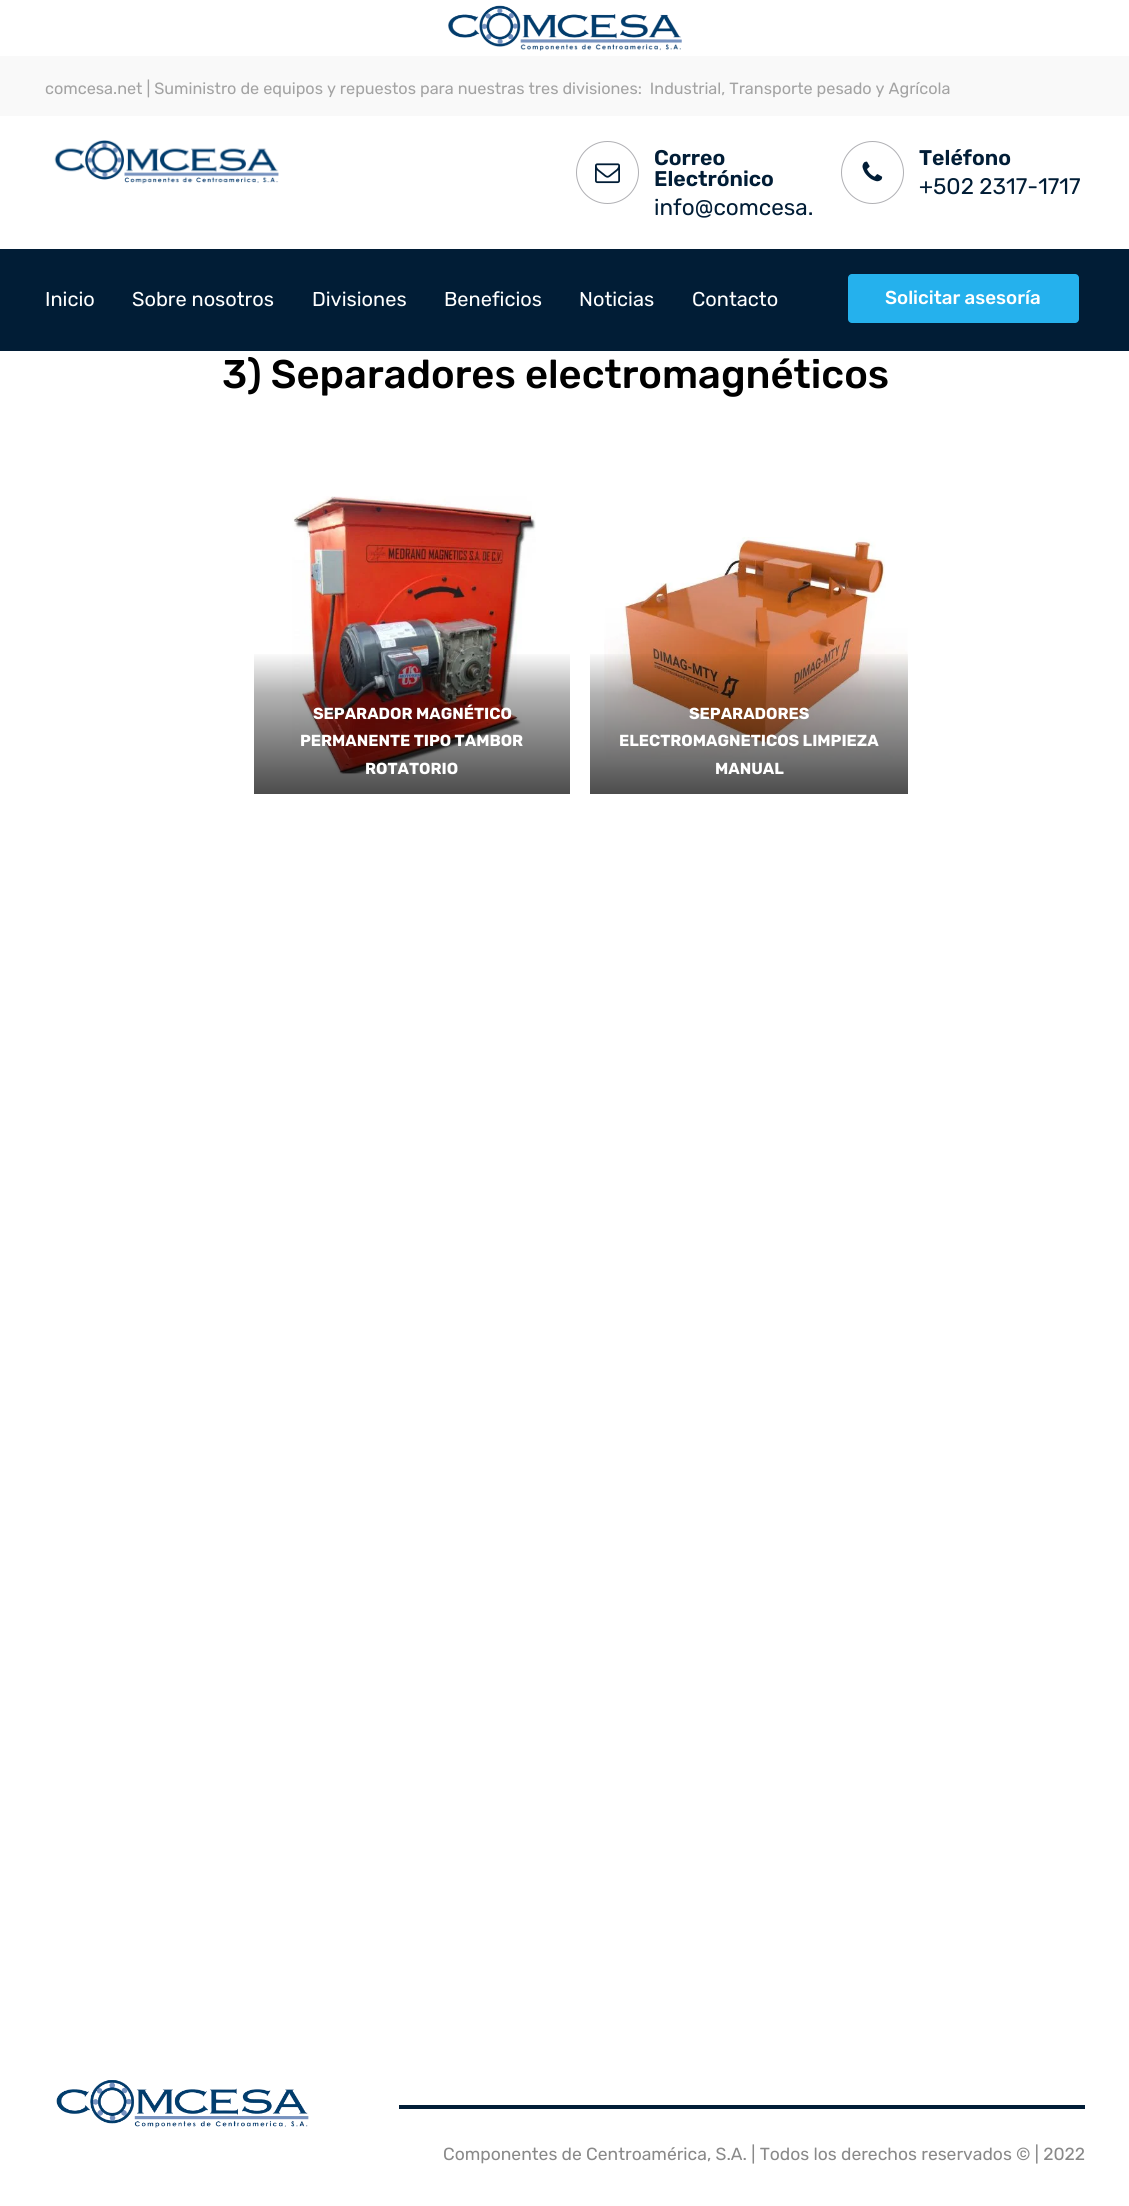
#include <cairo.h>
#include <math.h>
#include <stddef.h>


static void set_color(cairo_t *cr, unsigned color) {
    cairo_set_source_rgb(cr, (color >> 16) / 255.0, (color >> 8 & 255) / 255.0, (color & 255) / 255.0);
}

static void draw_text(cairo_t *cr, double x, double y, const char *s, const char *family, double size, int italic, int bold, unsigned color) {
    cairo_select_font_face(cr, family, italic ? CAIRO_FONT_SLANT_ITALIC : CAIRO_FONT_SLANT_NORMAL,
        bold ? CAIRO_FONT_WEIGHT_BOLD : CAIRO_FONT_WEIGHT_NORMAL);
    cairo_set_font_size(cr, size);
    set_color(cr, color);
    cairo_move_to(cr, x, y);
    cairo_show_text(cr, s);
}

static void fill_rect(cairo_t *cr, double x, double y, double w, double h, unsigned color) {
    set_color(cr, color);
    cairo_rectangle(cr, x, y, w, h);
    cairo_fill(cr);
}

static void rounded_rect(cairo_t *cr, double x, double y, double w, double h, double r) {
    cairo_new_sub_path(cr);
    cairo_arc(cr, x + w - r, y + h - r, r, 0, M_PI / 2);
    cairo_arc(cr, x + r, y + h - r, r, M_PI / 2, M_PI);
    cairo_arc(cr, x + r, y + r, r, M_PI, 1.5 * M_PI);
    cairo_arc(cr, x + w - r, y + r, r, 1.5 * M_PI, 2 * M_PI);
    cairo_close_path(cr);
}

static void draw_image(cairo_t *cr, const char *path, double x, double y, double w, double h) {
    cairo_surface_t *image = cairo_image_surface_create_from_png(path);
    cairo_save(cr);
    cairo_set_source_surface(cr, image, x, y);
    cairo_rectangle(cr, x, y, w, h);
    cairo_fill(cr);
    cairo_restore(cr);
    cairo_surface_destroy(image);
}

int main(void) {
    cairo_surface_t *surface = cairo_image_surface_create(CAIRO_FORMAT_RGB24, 1129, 2206);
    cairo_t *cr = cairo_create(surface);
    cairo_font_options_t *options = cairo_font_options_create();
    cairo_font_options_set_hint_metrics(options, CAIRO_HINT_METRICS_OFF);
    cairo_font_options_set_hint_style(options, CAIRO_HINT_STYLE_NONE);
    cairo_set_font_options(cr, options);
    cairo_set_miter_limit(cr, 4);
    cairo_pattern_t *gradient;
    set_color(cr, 0xFFFFFF);
    cairo_paint(cr);
    draw_image(cr, "assets/img1.png", 448, 5, 234, 46);
    fill_rect(cr, 0, 56, 1129, 60, 0xF9F9F9);
    draw_text(cr, 45, 94, "comcesa.net | Suministro de equipos y repuestos para nuestras tres divisiones:  Industrial, Transporte pesado y Agrícola", "Rubik", 16.25, 0, 0, 0xA3A3A3);
    draw_image(cr, "assets/img2.png", 54, 140, 225, 44);
    cairo_arc(cr, 607.5, 172.5, 31, 0, 2 * M_PI);
    set_color(cr, 0xB0B0B4);
    cairo_set_line_width(cr, 1);
    cairo_stroke(cr);
    draw_image(cr, "assets/img3.png", 595, 163, 25, 21);
    draw_text(cr, 654, 165, "Correo", "Rubik SemiBold", 21.25, 0, 0, 0x011D36);
    draw_text(cr, 654, 186, "Electrónico", "Rubik SemiBold", 21.25, 0, 0, 0x011D36);
    draw_text(cr, 654, 215, "info@comcesa.", "Rubik", 22.5, 0, 0, 0x011D36);
    cairo_new_path(cr);
    cairo_arc(cr, 872.5, 172.5, 31, 0, 2 * M_PI);
    set_color(cr, 0xB0B0B4);
    cairo_stroke(cr);
    draw_image(cr, "assets/img4.png", 862, 161, 21, 21);
    draw_text(cr, 919, 165, "Teléfono", "Rubik SemiBold", 21.25, 0, 0, 0x011D36);
    draw_text(cr, 919, 194, "+502 2317-1717", "Rubik", 22.5, 0, 0, 0x011D36);
    fill_rect(cr, 0, 249, 1129, 102, 0x011D36);
    draw_text(cr, 45, 306, "Inicio", "Rubik", 20, 0, 0, 0xFFFFFF);
    draw_text(cr, 132, 306, "Sobre nosotros", "Rubik", 20, 0, 0, 0xFFFFFF);
    draw_text(cr, 312, 306, "Divisiones", "Rubik", 20, 0, 0, 0xFFFFFF);
    draw_text(cr, 444, 306, "Beneficios", "Rubik", 20, 0, 0, 0xFFFFFF);
    draw_text(cr, 579, 306, "Noticias", "Rubik", 20, 0, 0, 0xFFFFFF);
    draw_text(cr, 692, 306, "Contacto", "Rubik", 20, 0, 0, 0xFFFFFF);
    set_color(cr, 0x25B1ED);
    rounded_rect(cr, 848, 274, 231, 49, 4);
    cairo_fill(cr);
    draw_text(cr, 885, 304, "Solicitar asesoría", "Rubik Medium", 18.75, 0, 0, 0xFFFFFF);
    draw_text(cr, 222, 388, "3) Separadores electromagnéticos", "Rubik Medium", 40, 0, 0, 0x000000);
    draw_image(cr, "assets/img5.png", 292, 496, 244, 279);
    gradient = cairo_pattern_create_linear(412, 794, 412, 651);
    cairo_pattern_add_color_stop_rgba(gradient, 0, 0, 0, 0, 0.7);
    cairo_pattern_add_color_stop_rgba(gradient, 0.7, 0, 0, 0, 0.3);
    cairo_pattern_add_color_stop_rgba(gradient, 1, 0, 0, 0, 0);
    cairo_set_source(cr, gradient);
    cairo_pattern_destroy(gradient);
    cairo_rectangle(cr, 254, 654, 316, 140);
    cairo_fill(cr);
    draw_text(cr, 313, 719, "SEPARADOR MAGNÉTICO", "Rubik", 16, 0, 1, 0xFFFFFF);
    draw_text(cr, 300, 746, "PERMANENTE TIPO TAMBOR", "Rubik", 16, 0, 1, 0xFFFFFF);
    draw_text(cr, 365, 774, "ROTATORIO", "Rubik", 16, 0, 1, 0xFFFFFF);
    draw_image(cr, "assets/img6.png", 604, 537, 304, 222);
    gradient = cairo_pattern_create_linear(749, 794, 749, 651);
    cairo_pattern_add_color_stop_rgba(gradient, 0, 0, 0, 0, 0.7);
    cairo_pattern_add_color_stop_rgba(gradient, 0.7, 0, 0, 0, 0.3);
    cairo_pattern_add_color_stop_rgba(gradient, 1, 0, 0, 0, 0);
    cairo_set_source(cr, gradient);
    cairo_pattern_destroy(gradient);
    cairo_rectangle(cr, 590, 654, 318, 140);
    cairo_fill(cr);
    draw_text(cr, 689, 719, "SEPARADORES", "Rubik", 16, 0, 1, 0xFFFFFF);
    draw_text(cr, 619, 746, "ELECTROMAGNETICOS LIMPIEZA", "Rubik", 16, 0, 1, 0xFFFFFF);
    draw_text(cr, 715, 774, "MANUAL", "Rubik", 16, 0, 1, 0xFFFFFF);
    draw_image(cr, "assets/img7.png", 56, 2080, 253, 48);
    fill_rect(cr, 399, 2105, 686, 4, 0x011D36);
    draw_text(cr, 443, 2160, "Componentes de Centroamérica, S.A. | Todos los derechos reservados © | 2022", "Rubik", 17.5, 0, 0, 0x898989);
    cairo_surface_write_to_png(surface, "output.png");
    cairo_font_options_destroy(options);
    cairo_destroy(cr);
    cairo_surface_destroy(surface);
    return 0;
}
